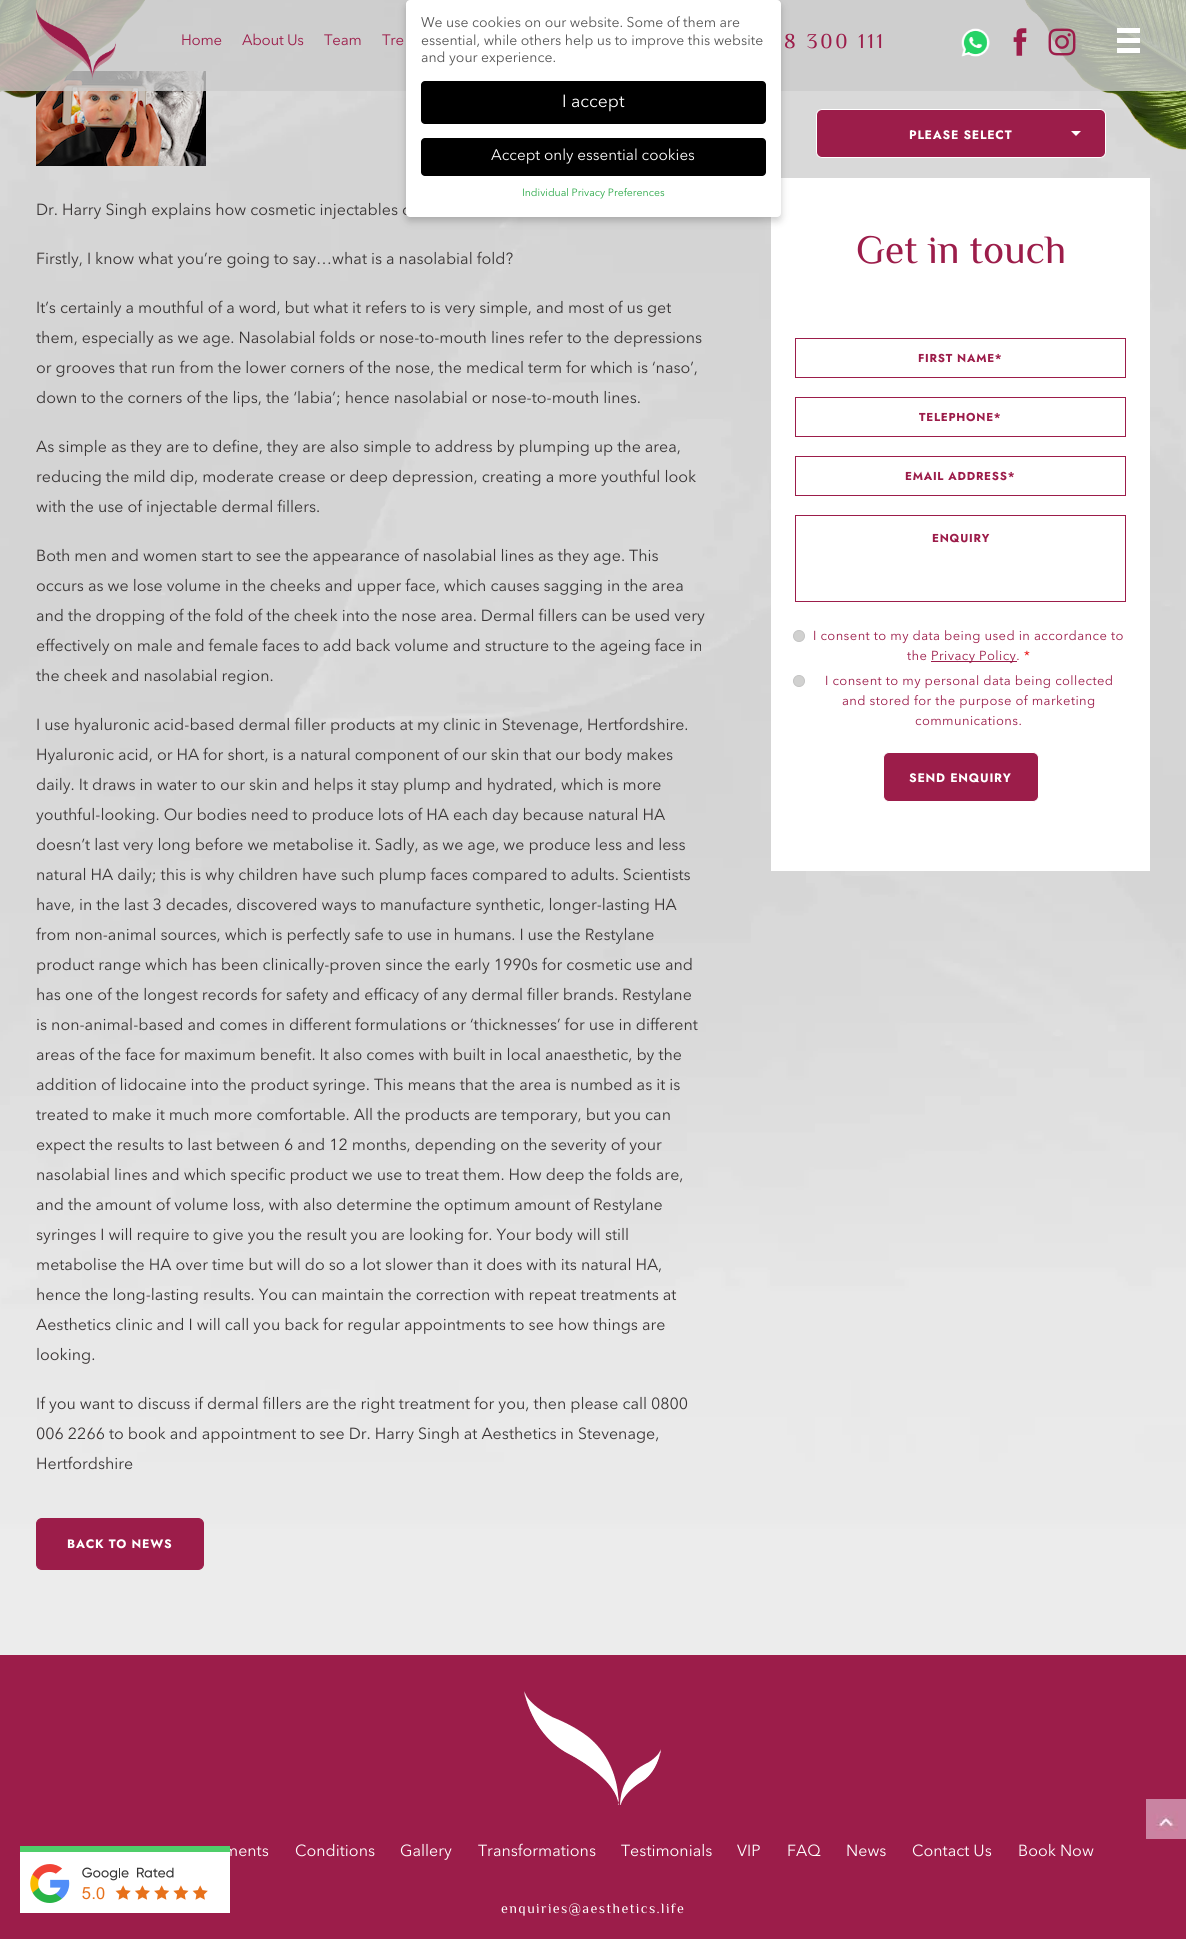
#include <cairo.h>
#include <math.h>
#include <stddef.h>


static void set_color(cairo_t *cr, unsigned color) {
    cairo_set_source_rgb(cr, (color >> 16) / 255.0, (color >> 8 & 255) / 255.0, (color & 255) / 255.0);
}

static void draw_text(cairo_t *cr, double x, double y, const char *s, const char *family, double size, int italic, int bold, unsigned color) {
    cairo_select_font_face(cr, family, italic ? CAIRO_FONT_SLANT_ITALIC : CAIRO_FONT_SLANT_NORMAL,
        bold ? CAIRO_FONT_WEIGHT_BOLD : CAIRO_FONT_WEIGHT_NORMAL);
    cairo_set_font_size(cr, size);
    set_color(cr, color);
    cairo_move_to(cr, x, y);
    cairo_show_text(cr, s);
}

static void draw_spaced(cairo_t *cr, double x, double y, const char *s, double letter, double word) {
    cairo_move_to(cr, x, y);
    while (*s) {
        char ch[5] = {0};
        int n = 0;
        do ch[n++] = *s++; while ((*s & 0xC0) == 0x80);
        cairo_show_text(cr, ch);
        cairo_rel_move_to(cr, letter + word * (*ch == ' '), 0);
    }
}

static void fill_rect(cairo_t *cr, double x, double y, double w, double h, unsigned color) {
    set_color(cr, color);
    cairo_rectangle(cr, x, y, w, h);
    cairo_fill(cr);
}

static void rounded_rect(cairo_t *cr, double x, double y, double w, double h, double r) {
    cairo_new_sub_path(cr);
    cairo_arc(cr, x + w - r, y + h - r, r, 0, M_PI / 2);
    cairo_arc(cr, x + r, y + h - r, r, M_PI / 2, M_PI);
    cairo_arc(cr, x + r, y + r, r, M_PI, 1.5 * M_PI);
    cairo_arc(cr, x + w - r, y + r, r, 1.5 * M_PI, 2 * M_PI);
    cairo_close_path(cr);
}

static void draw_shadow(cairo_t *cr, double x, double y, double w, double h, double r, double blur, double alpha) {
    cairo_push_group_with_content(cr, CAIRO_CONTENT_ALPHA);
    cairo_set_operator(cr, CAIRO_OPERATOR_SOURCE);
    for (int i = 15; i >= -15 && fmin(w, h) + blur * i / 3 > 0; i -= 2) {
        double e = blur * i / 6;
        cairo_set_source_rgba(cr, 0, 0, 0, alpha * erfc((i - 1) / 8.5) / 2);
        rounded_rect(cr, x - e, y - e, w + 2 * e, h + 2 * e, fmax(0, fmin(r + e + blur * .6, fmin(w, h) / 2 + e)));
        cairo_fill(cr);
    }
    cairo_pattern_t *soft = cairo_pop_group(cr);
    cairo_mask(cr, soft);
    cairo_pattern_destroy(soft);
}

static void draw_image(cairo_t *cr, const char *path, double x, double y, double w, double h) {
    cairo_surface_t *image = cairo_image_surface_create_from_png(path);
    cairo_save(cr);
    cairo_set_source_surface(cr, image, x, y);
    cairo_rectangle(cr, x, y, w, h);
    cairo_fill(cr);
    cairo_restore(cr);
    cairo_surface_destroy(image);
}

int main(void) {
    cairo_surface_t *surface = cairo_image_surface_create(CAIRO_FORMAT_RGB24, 1186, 1939);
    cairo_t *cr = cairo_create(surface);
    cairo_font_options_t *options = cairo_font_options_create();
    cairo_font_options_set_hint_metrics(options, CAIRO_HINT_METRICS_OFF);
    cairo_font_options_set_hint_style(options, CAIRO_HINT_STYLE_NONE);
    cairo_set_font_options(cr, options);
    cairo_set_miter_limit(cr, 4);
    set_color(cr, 0xFFFFFF);
    cairo_paint(cr);
    draw_image(cr, "assets/img5.png", 0, 0, 1186, 1655);
    draw_image(cr, "assets/img8.png", 36, 71, 170, 95);
    draw_image(cr, "assets/img6.png", 0, 0, 145, 98);
    draw_image(cr, "assets/img7.png", 1025, 0, 161, 150);
    cairo_set_source_rgba(cr, 0.8, 0.8, 0.8, 0.8);
    cairo_rectangle(cr, 0, 0, 1186, 91);
    cairo_fill(cr);
    fill_rect(cr, 771, 178, 379, 693, 0xFFFFFF);
    set_color(cr, 0x000000);
    draw_shadow(cr, 406, 4, 375, 217, 4, 4, 0.2);
    draw_text(cr, 36, 215, "Dr. Harry Singh explains how cosmetic injectables c", "Avenir Next", 16, 0, 0, 0x393535);
    set_color(cr, 0xFFFFFF);
    rounded_rect(cr, 406, 0, 375, 217, 4);
    cairo_fill(cr);
    draw_text(cr, 421, 27, "We use cookies on our website. Some of them are", "Avenir Next", 14, 0, 0, 0x555555);
    draw_text(cr, 421, 45, "essential, while others help us to improve this website", "Avenir Next", 14, 0, 0, 0x555555);
    draw_text(cr, 421, 62, "and your experience.", "Avenir Next", 14, 0, 0, 0x555555);
    set_color(cr, 0x000000);
    rounded_rect(cr, 421, 81, 345, 43, 4);
    cairo_fill(cr);
    draw_text(cr, 562, 107, "I accept", "Avenir Next", 17.5, 0, 0, 0xFFFFFF);
    set_color(cr, 0x000000);
    rounded_rect(cr, 421, 138, 345, 38, 4);
    cairo_fill(cr);
    draw_text(cr, 491, 160, "Accept only essential cookies", "Avenir Next", 15.25, 0, 0, 0xFFFFFF);
    draw_text(cr, 522, 196, "Individual Privacy Preferences", "Avenir Next", 10.5, 0, 0, 0x28A745);
    fill_rect(cr, 1117, 28, 23, 5, 0xFFFFFF);
    fill_rect(cr, 1117, 38, 23, 5, 0xFFFFFF);
    fill_rect(cr, 1117, 48, 23, 5, 0xFFFFFF);
    draw_image(cr, "assets/img1.png", 35, 8, 81, 72);
    cairo_set_font_size(cr, 15);
    set_color(cr, 0x9C1D4A);
    draw_spaced(cr, 181, 45, "Home", -0.25, 0);
    draw_spaced(cr, 242, 45, "About Us", -0.25, 0);
    draw_spaced(cr, 324, 45, "Team", -0.25, 0);
    draw_spaced(cr, 382, 45, "Tre", -0.25, 0);
    cairo_select_font_face(cr, "ZCOOL XiaoWei", CAIRO_FONT_SLANT_NORMAL, CAIRO_FONT_WEIGHT_NORMAL);
    cairo_set_font_size(cr, 21);
    draw_spaced(cr, 784, 48, "8 300 111", 2.75, 0);
    draw_image(cr, "assets/img2.png", 961, 28, 29, 29);
    draw_image(cr, "assets/img3.png", 1013, 28, 14, 28);
    draw_image(cr, "assets/img4.png", 1048, 28, 28, 28);
    draw_text(cr, 36, 264, "Firstly, I know what you’re going to say…what is a nasolabial fold?", "Avenir Next", 16, 0, 0, 0x393535);
    draw_text(cr, 36, 313, "It’s certainly a mouthful of a word, but what it refers to is very simple, and most of us get", "Avenir Next", 16, 0, 0, 0x393535);
    draw_text(cr, 36, 343, "them, especially as we age. Nasolabial folds or nose-to-mouth lines refer to the depressions", "Avenir Next", 16, 0, 0, 0x393535);
    draw_text(cr, 36, 373, "or grooves that run from the lower corners of the nose, the medical term for which is ‘naso’,", "Avenir Next", 16, 0, 0, 0x393535);
    draw_text(cr, 36, 403, "down to the corners of the lips, the ‘labia’; hence nasolabial or nose-to-mouth lines.", "Avenir Next", 16, 0, 0, 0x393535);
    draw_text(cr, 36, 452, "As simple as they are to define, they are also simple to address by plumping up the area,", "Avenir Next", 16, 0, 0, 0x393535);
    draw_text(cr, 36, 482, "reducing the mild dip, moderate crease or deep depression, creating a more youthful look", "Avenir Next", 16, 0, 0, 0x393535);
    draw_text(cr, 36, 512, "with the use of injectable dermal fillers.", "Avenir Next", 16, 0, 0, 0x393535);
    draw_text(cr, 36, 561, "Both men and women start to see the appearance of nasolabial lines as they age. This", "Avenir Next", 16, 0, 0, 0x393535);
    draw_text(cr, 36, 591, "occurs as we lose volume in the cheeks and upper face, which causes sagging in the area", "Avenir Next", 16, 0, 0, 0x393535);
    draw_text(cr, 36, 621, "and the dropping of the fold of the cheek into the nose area. Dermal fillers can be used very", "Avenir Next", 16, 0, 0, 0x393535);
    draw_text(cr, 36, 651, "effectively on male and female faces to add back volume and structure to the ageing face in", "Avenir Next", 16, 0, 0, 0x393535);
    draw_text(cr, 36, 681, "the cheek and nasolabial region.", "Avenir Next", 16, 0, 0, 0x393535);
    draw_text(cr, 36, 730, "I use hyaluronic acid-based dermal filler products at my clinic in Stevenage, Hertfordshire.", "Avenir Next", 16, 0, 0, 0x393535);
    draw_text(cr, 36, 760, "Hyaluronic acid, or HA for short, is a natural component of our skin that our body makes", "Avenir Next", 16, 0, 0, 0x393535);
    draw_text(cr, 36, 790, "daily. It draws in water to our skin and helps it stay plump and hydrated, which is more", "Avenir Next", 16, 0, 0, 0x393535);
    draw_text(cr, 36, 820, "youthful-looking. Our bodies need to produce lots of HA each day because natural HA", "Avenir Next", 16, 0, 0, 0x393535);
    draw_text(cr, 36, 850, "doesn’t last very long before we metabolise it. Sadly, as we age, we produce less and less", "Avenir Next", 16, 0, 0, 0x393535);
    draw_text(cr, 36, 880, "natural HA daily; this is why children have such plump faces compared to adults. Scientists", "Avenir Next", 16, 0, 0, 0x393535);
    draw_text(cr, 36, 910, "have, in the last 3 decades, discovered ways to manufacture synthetic, longer-lasting HA", "Avenir Next", 16, 0, 0, 0x393535);
    draw_text(cr, 36, 940, "from non-animal sources, which is perfectly safe to use in humans. I use the Restylane", "Avenir Next", 16, 0, 0, 0x393535);
    draw_text(cr, 36, 970, "product range which has been clinically-proven since the early 1990s for cosmetic use and", "Avenir Next", 16, 0, 0, 0x393535);
    draw_text(cr, 36, 1000, "has one of the longest records for safety and efficacy of any dermal filler brands. Restylane", "Avenir Next", 16, 0, 0, 0x393535);
    draw_text(cr, 36, 1030, "is non-animal-based and comes in different formulations or ‘thicknesses’ for use in different", "Avenir Next", 16, 0, 0, 0x393535);
    draw_text(cr, 36, 1060, "areas of the face for maximum benefit. It also comes with built in local anaesthetic, by the", "Avenir Next", 16, 0, 0, 0x393535);
    draw_text(cr, 36, 1090, "addition of lidocaine into the product syringe. This means that the area is numbed as it is", "Avenir Next", 16, 0, 0, 0x393535);
    draw_text(cr, 36, 1120, "treated to make it much more comfortable. All the products are temporary, but you can", "Avenir Next", 16, 0, 0, 0x393535);
    draw_text(cr, 36, 1150, "expect the results to last between 6 and 12 months, depending on the severity of your", "Avenir Next", 16, 0, 0, 0x393535);
    draw_text(cr, 36, 1180, "nasolabial lines and which specific product we use to treat them. How deep the folds are,", "Avenir Next", 16, 0, 0, 0x393535);
    draw_text(cr, 36, 1210, "and the amount of volume loss, with also determine the optimum amount of Restylane", "Avenir Next", 16, 0, 0, 0x393535);
    draw_text(cr, 36, 1240, "syringes I will require to give you the result you are looking for. Your body will still", "Avenir Next", 16, 0, 0, 0x393535);
    draw_text(cr, 36, 1270, "metabolise the HA over time but will do so a lot slower than it does with its natural HA,", "Avenir Next", 16, 0, 0, 0x393535);
    draw_text(cr, 36, 1300, "hence the long-lasting results. You can maintain the correction with repeat treatments at", "Avenir Next", 16, 0, 0, 0x393535);
    draw_text(cr, 36, 1330, "Aesthetics clinic and I will call you back for regular appointments to see how things are", "Avenir Next", 16, 0, 0, 0x393535);
    draw_text(cr, 36, 1360, "looking.", "Avenir Next", 16, 0, 0, 0x393535);
    draw_text(cr, 36, 1409, "If you want to discuss if dermal fillers are the right treatment for you, then please call 0800", "Avenir Next", 16, 0, 0, 0x393535);
    draw_text(cr, 36, 1439, "006 2266 to book and appointment to see Dr. Harry Singh at Aesthetics in Stevenage,", "Avenir Next", 16, 0, 0, 0x393535);
    draw_text(cr, 36, 1469, "Hertfordshire", "Avenir Next", 16, 0, 0, 0x393535);
    set_color(cr, 0x9C1D4A);
    rounded_rect(cr, 36.5, 1518.5, 167, 51, 5.5);
    cairo_fill_preserve(cr);
    cairo_set_line_width(cr, 1);
    cairo_stroke(cr);
    cairo_select_font_face(cr, "Jost", CAIRO_FONT_SLANT_NORMAL, CAIRO_FONT_WEIGHT_BOLD);
    cairo_set_font_size(cr, 12.25);
    set_color(cr, 0xFFFFFF);
    draw_spaced(cr, 67, 1548, "BACK TO NEWS", 0.75, 0);
    set_color(cr, 0x9C1D4A);
    rounded_rect(cr, 816.5, 109.5, 289, 48, 5.5);
    cairo_fill_preserve(cr);
    set_color(cr, 0xFFFFFF);
    cairo_stroke(cr);
    draw_spaced(cr, 909, 139, "PLEASE SELECT", 0.75, 0);
    draw_image(cr, "assets/img9.png", 1071, 131, 10, 5);
    draw_text(cr, 856, 263, "Get in touch", "ZCOOL XiaoWei", 40, 0, 0, 0x9C1D4A);
    cairo_rectangle(cr, 795.5, 338.5, 330, 39);
    cairo_stroke(cr);
    cairo_select_font_face(cr, "Jost", CAIRO_FONT_SLANT_NORMAL, CAIRO_FONT_WEIGHT_BOLD);
    cairo_set_font_size(cr, 11.5);
    draw_spaced(cr, 918, 362, "FIRST NAME*", 0.75, 0);
    cairo_rectangle(cr, 795.5, 397.5, 330, 39);
    cairo_stroke(cr);
    draw_spaced(cr, 919, 421, "TELEPHONE*", 0.75, 0);
    cairo_rectangle(cr, 795.5, 456.5, 330, 39);
    cairo_stroke(cr);
    draw_spaced(cr, 905, 480, "EMAIL ADDRESS*", 0.75, 0);
    cairo_rectangle(cr, 795.5, 515.5, 330, 86);
    cairo_stroke(cr);
    draw_spaced(cr, 932, 542, "ENQUIRY", 0.75, 0);
    set_color(cr, 0xD1D1D0);
    cairo_new_path(cr);
    cairo_arc(cr, 799, 636, 5.5, 0, 2 * M_PI);
    cairo_fill_preserve(cr);
    set_color(cr, 0xC4C4C4);
    cairo_stroke(cr);
    cairo_select_font_face(cr, "Avenir Next", CAIRO_FONT_SLANT_NORMAL, CAIRO_FONT_WEIGHT_NORMAL);
    cairo_set_font_size(cr, 13);
    set_color(cr, 0x9C1D4A);
    draw_spaced(cr, 813, 640, "I consent to my data being used in accordance to", 0.4, 0);
    draw_spaced(cr, 907, 660, "the", 0.4, 0);
    fill_rect(cr, 931, 661, 86, 1, 0x9C1D4A);
    draw_spaced(cr, 931, 660, "Privacy Policy.", 0.4, 0);
    set_color(cr, 0xE80000);
    draw_spaced(cr, 1024, 660, "*", 0.4, 0);
    set_color(cr, 0xD1D1D0);
    cairo_new_path(cr);
    cairo_arc(cr, 799, 681, 5.5, 0, 2 * M_PI);
    cairo_fill_preserve(cr);
    set_color(cr, 0xC4C4C4);
    cairo_stroke(cr);
    set_color(cr, 0x9C1D4A);
    draw_spaced(cr, 825, 685, "I consent to my personal data being collected", 0.4, 0);
    draw_spaced(cr, 842, 705, "and stored for the purpose of marketing", 0.4, 0);
    draw_spaced(cr, 915, 725, "communications.", 0.4, 0);
    rounded_rect(cr, 883.5, 752.5, 155, 49, 5.5);
    cairo_fill_preserve(cr);
    set_color(cr, 0xFFFFFF);
    cairo_stroke(cr);
    cairo_select_font_face(cr, "Jost", CAIRO_FONT_SLANT_NORMAL, CAIRO_FONT_WEIGHT_BOLD);
    cairo_set_font_size(cr, 12.25);
    draw_spaced(cr, 909, 782, "SEND ENQUIRY", 0.75, 0);
    fill_rect(cr, 0, 1655, 1186, 284, 0x9C1D4A);
    draw_image(cr, "assets/img10.png", 1146, 1799, 40, 40);
    draw_text(cr, 224, 1856, "ments", "Avenir Next", 16, 0, 0, 0xFFFFFF);
    draw_image(cr, "assets/img11.png", 20, 1846, 210, 67);
    draw_image(cr, "assets/img12.png", 524, 1691, 137, 114);
    draw_text(cr, 295, 1856, "Conditions", "Avenir Next", 16, 0, 0, 0xFFFFFF);
    draw_text(cr, 400, 1856, "Gallery", "Avenir Next", 16, 0, 0, 0xFFFFFF);
    draw_text(cr, 478, 1856, "Transformations", "Avenir Next", 16, 0, 0, 0xFFFFFF);
    draw_text(cr, 621, 1856, "Testimonials", "Avenir Next", 16, 0, 0, 0xFFFFFF);
    draw_text(cr, 737, 1856, "VIP", "Avenir Next", 16, 0, 0, 0xFFFFFF);
    draw_text(cr, 787, 1856, "FAQ", "Avenir Next", 16, 0, 0, 0xFFFFFF);
    draw_text(cr, 846, 1856, "News", "Avenir Next", 16, 0, 0, 0xFFFFFF);
    draw_text(cr, 912, 1856, "Contact Us", "Avenir Next", 16, 0, 0, 0xFFFFFF);
    draw_text(cr, 1018, 1856, "Book Now", "Avenir Next", 16, 0, 0, 0xFFFFFF);
    cairo_select_font_face(cr, "ZCOOL XiaoWei", CAIRO_FONT_SLANT_NORMAL, CAIRO_FONT_WEIGHT_NORMAL);
    cairo_set_font_size(cr, 14.1);
    draw_spaced(cr, 501, 1913, "enquiries@aesthetics.life", 1.4, 0);
    cairo_surface_write_to_png(surface, "output.png");
    cairo_font_options_destroy(options);
    cairo_destroy(cr);
    cairo_surface_destroy(surface);
    return 0;
}
